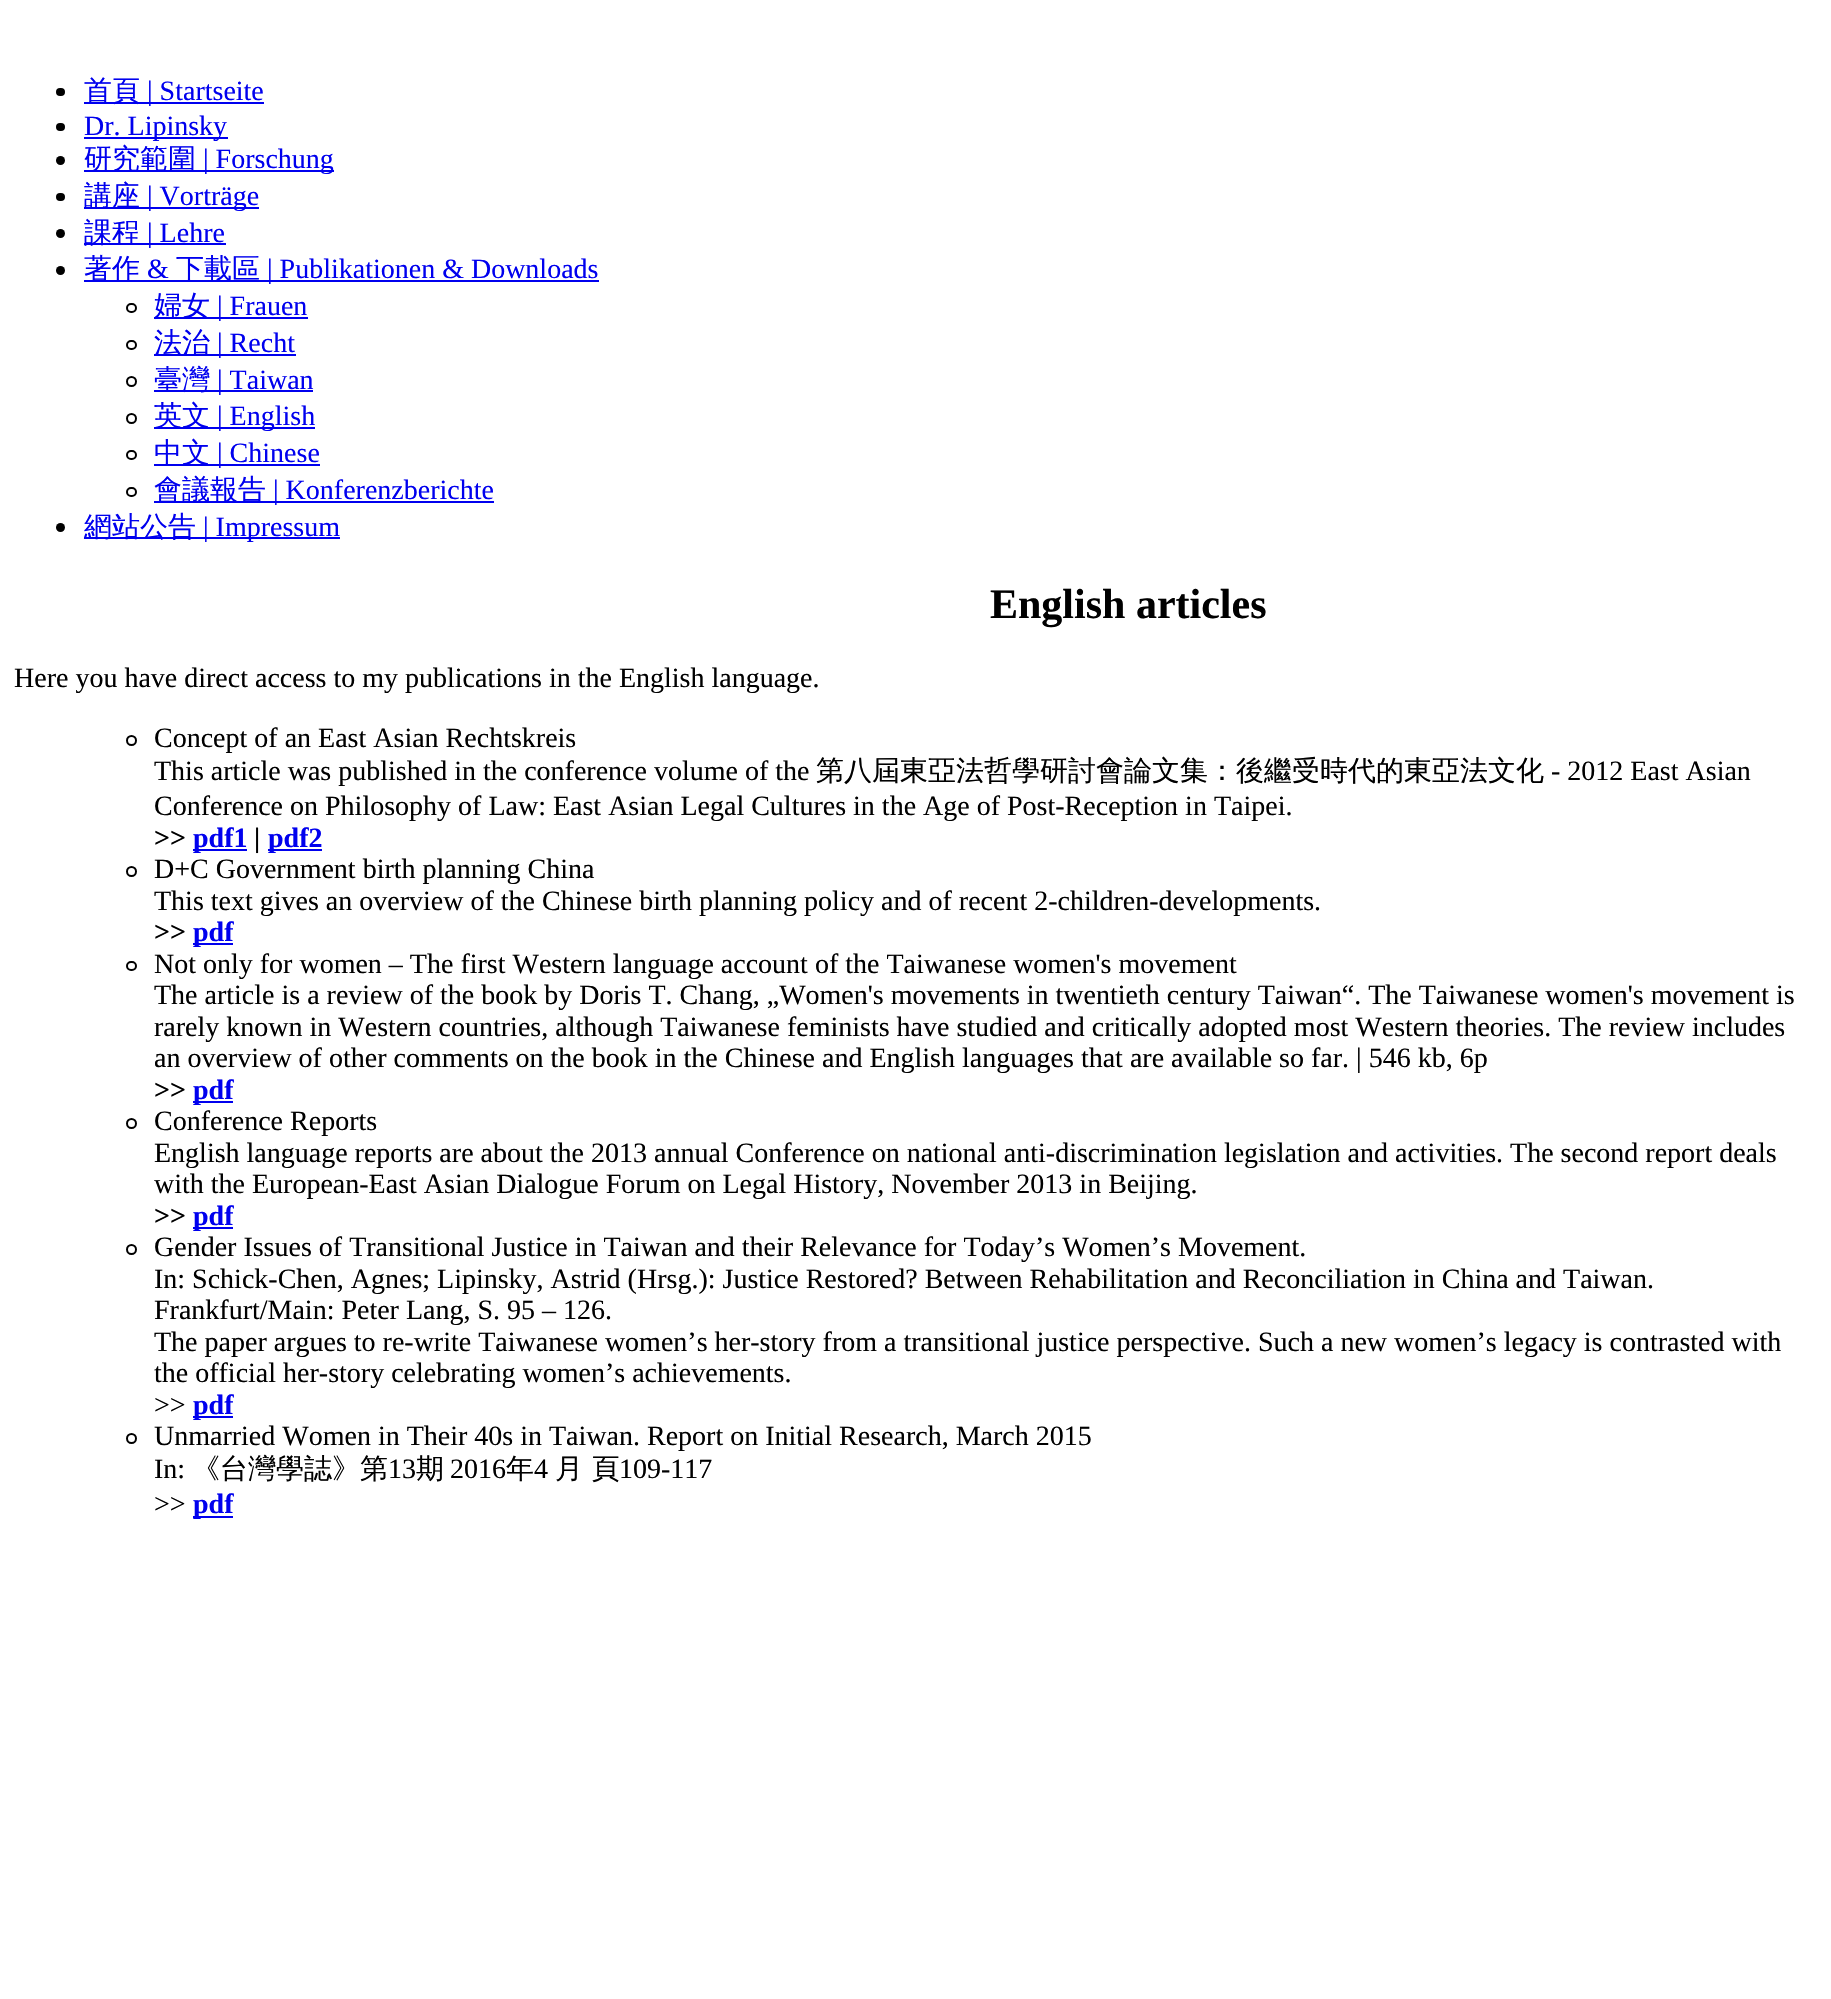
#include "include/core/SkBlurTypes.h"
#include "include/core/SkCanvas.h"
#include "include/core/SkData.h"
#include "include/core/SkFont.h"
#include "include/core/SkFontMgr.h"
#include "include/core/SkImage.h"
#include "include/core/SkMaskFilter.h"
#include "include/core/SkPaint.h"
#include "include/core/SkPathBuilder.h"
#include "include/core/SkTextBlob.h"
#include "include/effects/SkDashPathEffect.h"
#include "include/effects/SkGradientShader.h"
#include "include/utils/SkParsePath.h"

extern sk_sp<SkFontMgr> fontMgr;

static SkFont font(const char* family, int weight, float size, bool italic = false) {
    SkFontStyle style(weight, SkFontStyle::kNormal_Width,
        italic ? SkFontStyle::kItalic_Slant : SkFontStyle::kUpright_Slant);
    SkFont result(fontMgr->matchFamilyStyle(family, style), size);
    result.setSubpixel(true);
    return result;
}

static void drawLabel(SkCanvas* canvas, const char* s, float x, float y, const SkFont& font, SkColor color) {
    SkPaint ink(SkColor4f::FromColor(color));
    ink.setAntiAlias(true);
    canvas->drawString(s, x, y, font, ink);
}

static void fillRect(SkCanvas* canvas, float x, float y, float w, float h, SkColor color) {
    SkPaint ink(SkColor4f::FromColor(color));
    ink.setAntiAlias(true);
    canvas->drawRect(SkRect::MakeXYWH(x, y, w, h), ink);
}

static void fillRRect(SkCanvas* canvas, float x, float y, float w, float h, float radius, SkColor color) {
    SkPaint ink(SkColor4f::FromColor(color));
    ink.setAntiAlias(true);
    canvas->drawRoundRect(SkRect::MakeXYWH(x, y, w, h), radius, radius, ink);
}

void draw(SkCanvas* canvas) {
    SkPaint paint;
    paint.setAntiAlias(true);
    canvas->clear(0xFFFFFFFF);
    fillRRect(canvas, 56, 88, 9, 8, 4, 0xFF000000);
    fillRect(canvas, 84, 102, 180, 2, 0xFF0000EE);
    SkFont font1 = font("WenQuanYi Zen Hei", 500, 28);
    drawLabel(canvas, "首頁", 84, 100, font1, 0xFF0000EE);
    SkFont font2 = font("Liberation Serif", 400, 28);
    drawLabel(canvas, "| Startseite", 147, 100, font2, 0xFF0000EE);
    fillRRect(canvas, 56, 123, 9, 8, 4, 0xFF000000);
    fillRect(canvas, 84, 137, 144, 2, 0xFF0000EE);
    drawLabel(canvas, "Dr. Lipinsky", 84, 135, font2, 0xFF0000EE);
    paint.setColor(0xFF000000);
    canvas->drawCircle(60.5f, 160.5f, 4.5f, paint);
    fillRect(canvas, 84, 170, 250, 2, 0xFF0000EE);
    drawLabel(canvas, "研究範圍", 84, 168, font1, 0xFF0000EE);
    drawLabel(canvas, "| Forschung", 203, 168, font2, 0xFF0000EE);
    fillRRect(canvas, 56, 193, 9, 8, 4, 0xFF000000);
    fillRect(canvas, 84, 207, 175, 2, 0xFF0000EE);
    drawLabel(canvas, "講座", 84, 205, font1, 0xFF0000EE);
    drawLabel(canvas, "| Vorträge", 147, 205, font2, 0xFF0000EE);
    canvas->drawCircle(60.5f, 233.5f, 4.5f, paint);
    fillRect(canvas, 84, 243, 142, 2, 0xFF0000EE);
    drawLabel(canvas, "課程", 84, 242, font1, 0xFF0000EE);
    drawLabel(canvas, "| Lehre", 147, 242, font2, 0xFF0000EE);
    canvas->drawCircle(60.5f, 270.5f, 4.5f, paint);
    fillRect(canvas, 84, 280, 515, 2, 0xFF0000EE);
    drawLabel(canvas, "著作", 84, 278, font1, 0xFF0000EE);
    drawLabel(canvas, "&", 147, 278, font2, 0xFF0000EE);
    drawLabel(canvas, "下載區", 176, 278, font1, 0xFF0000EE);
    drawLabel(canvas, "| Publikationen & Downloads", 267, 278, font2, 0xFF0000EE);
    paint.setStroke(true);
    paint.setStrokeWidth(2);
    canvas->drawRoundRect(SkRect::MakeXYWH(127, 304, 9, 8), 4, 4, paint);
    fillRect(canvas, 154, 317, 154, 2, 0xFF0000EE);
    drawLabel(canvas, "婦女", 154, 315, font1, 0xFF0000EE);
    drawLabel(canvas, "| Frauen", 217, 315, font2, 0xFF0000EE);
    canvas->drawRoundRect(SkRect::MakeXYWH(127, 341, 9, 8), 4, 4, paint);
    fillRect(canvas, 154, 354, 142, 2, 0xFF0000EE);
    drawLabel(canvas, "法治", 154, 352, font1, 0xFF0000EE);
    drawLabel(canvas, "| Recht", 217, 352, font2, 0xFF0000EE);
    canvas->drawCircle(131.5f, 381.5f, 4.5f, paint);
    fillRect(canvas, 154, 390, 159, 2, 0xFF0000EE);
    drawLabel(canvas, "臺灣", 154, 389, font1, 0xFF0000EE);
    drawLabel(canvas, "| Taiwan", 217, 389, font2, 0xFF0000EE);
    canvas->drawCircle(131.5f, 418.5f, 4.5f, paint);
    fillRect(canvas, 154, 427, 161, 2, 0xFF0000EE);
    drawLabel(canvas, "英文", 154, 425, font1, 0xFF0000EE);
    drawLabel(canvas, "| English", 217, 425, font2, 0xFF0000EE);
    canvas->drawRoundRect(SkRect::MakeXYWH(127, 451, 9, 8), 4, 4, paint);
    fillRect(canvas, 154, 464, 166, 2, 0xFF0000EE);
    drawLabel(canvas, "中文", 154, 462, font1, 0xFF0000EE);
    drawLabel(canvas, "| Chinese", 217, 462, font2, 0xFF0000EE);
    canvas->drawRoundRect(SkRect::MakeXYWH(127, 488, 9, 8), 4, 4, paint);
    fillRect(canvas, 154, 501, 340, 2, 0xFF0000EE);
    drawLabel(canvas, "會議報告", 154, 499, font1, 0xFF0000EE);
    drawLabel(canvas, "| Konferenzberichte", 273, 499, font2, 0xFF0000EE);
    paint.setStroke(false);
    canvas->drawCircle(60.5f, 527.5f, 4.5f, paint);
    fillRect(canvas, 84, 537, 256, 2, 0xFF0000EE);
    drawLabel(canvas, "網站公告", 84, 536, font1, 0xFF0000EE);
    drawLabel(canvas, "| Impressum", 203, 536, font2, 0xFF0000EE);
    SkFont font3 = font("Liberation Serif", 700, 42);
    drawLabel(canvas, "English articles", 990, 618, font3, 0xFF000000);
    drawLabel(canvas, "Here you have direct access to my publications in the English language.", 14, 687, font2, 0xFF000000);
    paint.setStroke(true);
    canvas->drawCircle(131.5f, 740.5f, 4.5f, paint);
    drawLabel(canvas, "Concept of an East Asian Rechtskreis", 154, 747, font2, 0xFF000000);
    drawLabel(canvas, "This article was published in the conference volume of the", 154, 780, font2, 0xFF000000);
    drawLabel(canvas, "第八屆東亞法哲學研討會論文集：後繼受時代的東亞法文化", 816, 780, font1, 0xFF000000);
    drawLabel(canvas, "- 2012 East Asian", 1551, 780, font2, 0xFF000000);
    drawLabel(canvas, "Conference on Philosophy of Law: East Asian Legal Cultures in the Age of Post-Reception in Taipei.", 154, 815, font2, 0xFF000000);
    SkFont font4 = font("Liberation Serif", 700, 28);
    drawLabel(canvas, ">>", 154, 847, font4, 0xFF000000);
    fillRect(canvas, 193, 849, 54, 2, 0xFF0000EE);
    drawLabel(canvas, "pdf1", 193, 847, font4, 0xFF0000EE);
    drawLabel(canvas, "|", 254, 847, font4, 0xFF000000);
    fillRect(canvas, 268, 849, 54, 2, 0xFF0000EE);
    drawLabel(canvas, "pdf2", 268, 847, font4, 0xFF0000EE);
    canvas->drawCircle(131.5f, 871.5f, 4.5f, paint);
    drawLabel(canvas, "D+C Government birth planning China", 154, 878, font2, 0xFF000000);
    drawLabel(canvas, "This text gives an overview of the Chinese birth planning policy and of recent 2-children-developments.", 154, 910, font2, 0xFF000000);
    drawLabel(canvas, ">>", 154, 941, font4, 0xFF000000);
    fillRect(canvas, 193, 943, 40, 2, 0xFF0000EE);
    drawLabel(canvas, "pdf", 193, 941, font4, 0xFF0000EE);
    canvas->drawRoundRect(SkRect::MakeXYWH(127, 962, 9, 8), 4, 4, paint);
    drawLabel(canvas, "Not only for women – The first Western language account of the Taiwanese women's movement", 154, 973, font2, 0xFF000000);
    drawLabel(canvas, "The article is a review of the book by Doris T. Chang, „Women's movements in twentieth century Taiwan“. The Taiwanese women's movement is", 154, 1004, font2, 0xFF000000);
    drawLabel(canvas, "rarely known in Western countries, although Taiwanese feminists have studied and critically adopted most Western theories. The review includes", 154, 1036, font2, 0xFF000000);
    drawLabel(canvas, "an overview of other comments on the book in the Chinese and English languages that are available so far. | 546 kb, 6p", 154, 1067, font2, 0xFF000000);
    drawLabel(canvas, ">>", 154, 1099, font4, 0xFF000000);
    fillRect(canvas, 193, 1101, 40, 2, 0xFF0000EE);
    drawLabel(canvas, "pdf", 193, 1099, font4, 0xFF0000EE);
    canvas->drawCircle(131.5f, 1123.5f, 4.5f, paint);
    drawLabel(canvas, "Conference Reports", 154, 1130, font2, 0xFF000000);
    drawLabel(canvas, "English language reports are about the 2013 annual Conference on national anti-discrimination legislation and activities. The second report deals", 154, 1162, font2, 0xFF000000);
    drawLabel(canvas, "with the European-East Asian Dialogue Forum on Legal History, November 2013 in Beijing.", 154, 1193, font2, 0xFF000000);
    drawLabel(canvas, ">>", 154, 1225, font4, 0xFF000000);
    fillRect(canvas, 193, 1227, 40, 2, 0xFF0000EE);
    drawLabel(canvas, "pdf", 193, 1225, font4, 0xFF0000EE);
    canvas->drawCircle(131.5f, 1249.5f, 4.5f, paint);
    drawLabel(canvas, "Gender Issues of Transitional Justice in Taiwan and their Relevance for Today’s Women’s Movement.", 154, 1256, font2, 0xFF000000);
    drawLabel(canvas, "In: Schick-Chen, Agnes; Lipinsky, Astrid (Hrsg.): Justice Restored? Between Rehabilitation and Reconciliation in China and Taiwan.", 154, 1288, font2, 0xFF000000);
    drawLabel(canvas, "Frankfurt/Main: Peter Lang, S. 95 – 126.", 154, 1319, font2, 0xFF000000);
    drawLabel(canvas, "The paper argues to re-write Taiwanese women’s her-story from a transitional justice perspective. Such a new women’s legacy is contrasted with", 154, 1351, font2, 0xFF000000);
    drawLabel(canvas, "the official her-story celebrating women’s achievements.", 154, 1382, font2, 0xFF000000);
    drawLabel(canvas, ">>", 154, 1414, font2, 0xFF000000);
    fillRect(canvas, 193, 1416, 40, 2, 0xFF0000EE);
    drawLabel(canvas, "pdf", 193, 1414, font4, 0xFF0000EE);
    canvas->drawCircle(131.5f, 1438.5f, 4.5f, paint);
    drawLabel(canvas, "Unmarried Women in Their 40s in Taiwan. Report on Initial Research, March 2015", 154, 1445, font2, 0xFF000000);
    drawLabel(canvas, "In:", 154, 1478, font2, 0xFF000000);
    drawLabel(canvas, "《台灣學誌》第", 192, 1478, font1, 0xFF000000);
    drawLabel(canvas, "13", 388, 1478, font2, 0xFF000000);
    drawLabel(canvas, "期", 416, 1478, font1, 0xFF000000);
    drawLabel(canvas, "2016", 450, 1478, font2, 0xFF000000);
    drawLabel(canvas, "年", 506, 1478, font1, 0xFF000000);
    drawLabel(canvas, "4", 534, 1478, font2, 0xFF000000);
    drawLabel(canvas, "月 頁", 555, 1478, font1, 0xFF000000);
    drawLabel(canvas, "109-117", 619, 1478, font2, 0xFF000000);
    drawLabel(canvas, ">>", 154, 1513, font2, 0xFF000000);
    fillRect(canvas, 193, 1516, 40, 2, 0xFF0000EE);
    drawLabel(canvas, "pdf", 193, 1513, font4, 0xFF0000EE);
}
